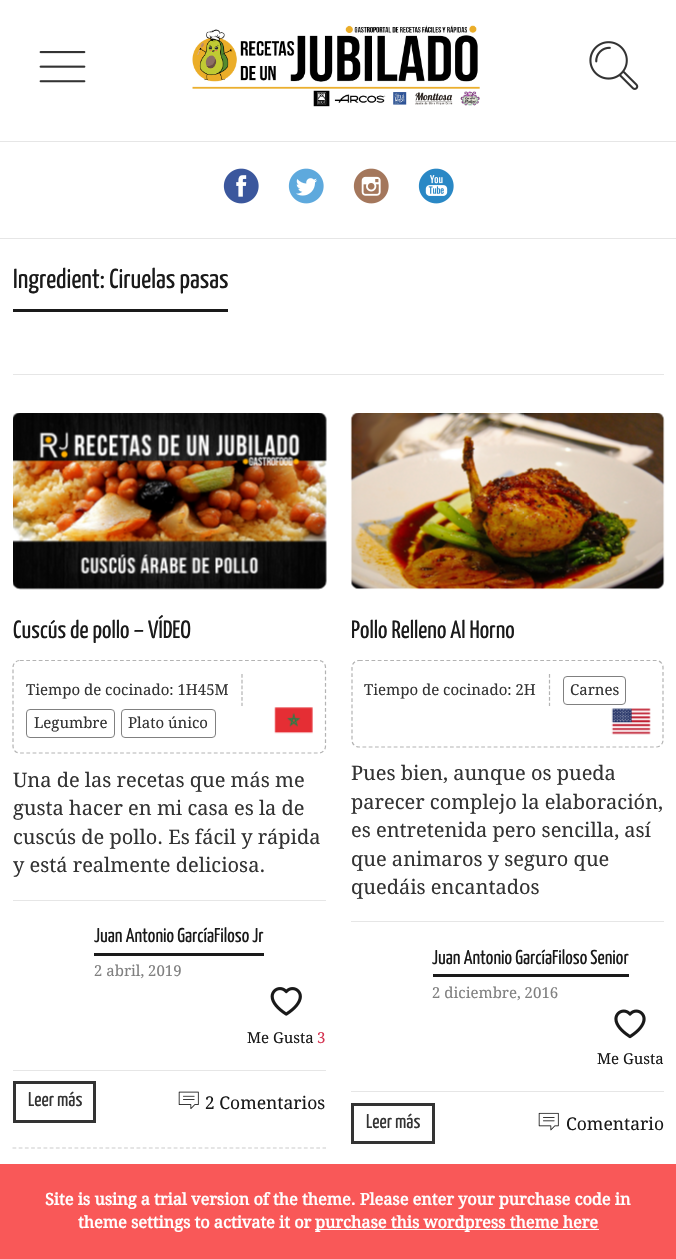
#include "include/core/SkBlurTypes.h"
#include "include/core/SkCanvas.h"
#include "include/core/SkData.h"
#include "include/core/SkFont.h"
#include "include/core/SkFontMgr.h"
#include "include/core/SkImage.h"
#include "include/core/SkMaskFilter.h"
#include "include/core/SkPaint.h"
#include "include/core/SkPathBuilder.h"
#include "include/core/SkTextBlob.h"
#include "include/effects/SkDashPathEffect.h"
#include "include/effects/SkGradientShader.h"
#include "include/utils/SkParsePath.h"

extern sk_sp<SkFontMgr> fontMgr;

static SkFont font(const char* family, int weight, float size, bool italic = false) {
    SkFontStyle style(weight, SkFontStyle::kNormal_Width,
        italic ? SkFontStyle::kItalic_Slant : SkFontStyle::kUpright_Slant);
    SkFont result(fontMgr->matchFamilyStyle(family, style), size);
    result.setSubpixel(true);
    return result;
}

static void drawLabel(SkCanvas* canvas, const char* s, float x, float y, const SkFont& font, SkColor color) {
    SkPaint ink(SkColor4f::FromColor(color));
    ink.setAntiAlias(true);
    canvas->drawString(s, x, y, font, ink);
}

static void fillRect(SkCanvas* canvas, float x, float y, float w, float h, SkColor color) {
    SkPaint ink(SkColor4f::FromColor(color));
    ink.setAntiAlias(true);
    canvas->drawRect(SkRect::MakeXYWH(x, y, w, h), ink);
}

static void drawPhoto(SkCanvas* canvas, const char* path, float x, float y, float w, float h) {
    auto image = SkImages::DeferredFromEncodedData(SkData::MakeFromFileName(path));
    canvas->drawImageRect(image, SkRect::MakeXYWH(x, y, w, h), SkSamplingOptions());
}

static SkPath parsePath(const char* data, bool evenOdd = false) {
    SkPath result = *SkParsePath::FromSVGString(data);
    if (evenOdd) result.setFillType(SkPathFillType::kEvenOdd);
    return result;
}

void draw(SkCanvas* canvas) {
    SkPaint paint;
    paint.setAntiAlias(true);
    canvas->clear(0xFFFFFFFF);
    drawPhoto(canvas, "assets/img1.png", 39, 51, 47, 32);
    drawPhoto(canvas, "assets/img2.png", 192, 25, 288, 82);
    drawPhoto(canvas, "assets/img3.png", 589, 41, 50, 49);
    fillRect(canvas, 0, 141, 676, 1, 0xFFE6E6E6);
    fillRect(canvas, 0, 238, 676, 1, 0xFFE6E6E6);
    drawPhoto(canvas, "assets/img4.png", 223, 168, 36, 36);
    drawPhoto(canvas, "assets/img5.png", 288, 168, 36, 36);
    drawPhoto(canvas, "assets/img6.png", 353, 168, 36, 36);
    drawPhoto(canvas, "assets/img7.png", 418, 168, 36, 36);
    fillRect(canvas, 13, 374, 651, 1, 0xFFE6E6E6);
    fillRect(canvas, 13, 309, 215, 3, 0xFF1A1A1A);
    SkFont font1 = font("Yanone Kaffeesatz", 200, 27.5f);
    drawLabel(canvas, "Ingredient: Ciruelas pasas", 13, 288, font1, 0xFF1A1A1A);
    paint.setStroke(true);
    paint.setStrokeWidth(1.2f);
    paint.setColor(0xFFCCCCCC);
    paint.setPathEffect(SkDashPathEffect::Make({{3.75f, 2.45f}}, 0));
    canvas->drawPath(parsePath("M12.5 1148H326"), paint);
    paint.setPathEffect(nullptr);
    drawPhoto(canvas, "assets/img8.png", 13, 413, 314, 177);
    SkFont font2 = font("Yanone Kaffeesatz", 200, 25);
    drawLabel(canvas, "Cuscús de pollo – VÍDEO", 13, 638, font2, 0xFF1A1A1A);
    paint.setColor(0xFFB3B3B3);
    paint.setPathEffect(SkDashPathEffect::Make({{3.75f, 2.5f}}, 0));
    canvas->drawPath(parsePath("M20 660.5H319C322.5 660.5 325.5 663.5 325.5 667.5V746C325.5 750 322.5 753 319 753H20C16 753 13 750 13 746V667.5C13 663.5 16 660.5 20 660.5Z"), paint);
    paint.setPathEffect(nullptr);
    paint.setPathEffect(SkDashPathEffect::Make({{3.75f, 2}}, 0));
    canvas->drawPath(parsePath("M242 674V706"), paint);
    paint.setPathEffect(nullptr);
    SkFont font3 = font("Droid Serif", 400, 15);
    drawLabel(canvas, "Tiempo de cocinado: 1H45M", 26, 695, font3, 0xFF333333);
    paint.setStrokeWidth(1);
    paint.setColor(0xFF808080);
    canvas->drawRoundRect(SkRect::MakeXYWH(26.5f, 709.5f, 88, 28), 3.5f, 3.5f, paint);
    drawLabel(canvas, "Legumbre", 34, 728, font3, 0xFF333333);
    canvas->drawRoundRect(SkRect::MakeXYWH(121.5f, 709.5f, 94, 28), 3.5f, 3.5f, paint);
    drawLabel(canvas, "Plato único", 128, 728, font3, 0xFF333333);
    drawPhoto(canvas, "assets/img9.png", 274, 707, 39, 27);
    SkFont font4 = font("Droid Serif", 400, 20);
    drawLabel(canvas, "Una de las recetas que más me", 13, 787, font4, 0xFF333333);
    drawLabel(canvas, "gusta hacer en mi casa es la de", 13, 815, font4, 0xFF333333);
    drawLabel(canvas, "cuscús de pollo. Es fácil y rápida", 13, 844, font4, 0xFF333333);
    drawLabel(canvas, "y está realmente deliciosa.", 13, 872, font4, 0xFF333333);
    fillRect(canvas, 13, 900, 313, 1, 0xFFE6E6E6);
    fillRect(canvas, 94, 953, 170, 3, 0xFF1A1A1A);
    SkFont font5 = font("Yanone Kaffeesatz", 200, 20);
    drawLabel(canvas, "Juan Antonio GarcíaFiloso Jr", 94, 942, font5, 0xFF1A1A1A);
    drawLabel(canvas, "2 abril, 2019", 94, 976, font3, 0xFF808080);
    drawPhoto(canvas, "assets/img10.png", 270, 987, 32, 29);
    drawLabel(canvas, "Me Gusta", 247, 1043, font3, 0xFF1A1A1A);
    drawLabel(canvas, "3", 317, 1043, font3, 0xFFD53452);
    fillRect(canvas, 13, 1070, 313, 1, 0xFFE6E6E6);
    paint.setStrokeWidth(3);
    paint.setColor(0xFF333333);
    canvas->drawRect(SkRect::MakeXYWH(14.5f, 1082.5f, 80, 39), paint);
    drawLabel(canvas, "Leer más", 28, 1106, font5, 0xFF333333);
    drawPhoto(canvas, "assets/img11.png", 178, 1091, 21, 18);
    SkFont font6 = font("Droid Serif", 400, 17.5f);
    drawLabel(canvas, "2 Comentarios", 205, 1109, font6, 0xFF1A1A1A);
    drawPhoto(canvas, "assets/img12.png", 350, 413, 315, 177);
    drawLabel(canvas, "Pollo Relleno Al Horno", 351, 638, font2, 0xFF1A1A1A);
    paint.setStrokeWidth(1.2f);
    paint.setColor(0xFFB3B3B3);
    paint.setPathEffect(SkDashPathEffect::Make({{3.75f, 2.5f}}, 0));
    canvas->drawPath(parsePath("M359 660.5H656C660 660.5 663 663.5 663 667.5V740C663 744 660 747 656 747H359C355 747 352 744 352 740V667.5C352 663.5 355 660.5 359 660.5Z"), paint);
    paint.setPathEffect(nullptr);
    paint.setPathEffect(SkDashPathEffect::Make({{3.75f, 2}}, 0));
    canvas->drawPath(parsePath("M549.5 674V706"), paint);
    paint.setPathEffect(nullptr);
    drawLabel(canvas, "Tiempo de cocinado: 2H", 364, 695, font3, 0xFF333333);
    paint.setStrokeWidth(1);
    paint.setColor(0xFF808080);
    canvas->drawRoundRect(SkRect::MakeXYWH(563.5f, 676.5f, 62, 28), 3.5f, 3.5f, paint);
    drawLabel(canvas, "Carnes", 570, 695, font3, 0xFF333333);
    drawPhoto(canvas, "assets/img13.png", 611, 708, 40, 27);
    drawLabel(canvas, "Pues bien, aunque os pueda", 351, 780, font4, 0xFF333333);
    drawLabel(canvas, "parecer complejo la elaboración,", 351, 809, font4, 0xFF333333);
    drawLabel(canvas, "es entretenida pero sencilla, así", 351, 837, font4, 0xFF333333);
    drawLabel(canvas, "que animaros y seguro que", 351, 866, font4, 0xFF333333);
    drawLabel(canvas, "quedáis encantados", 351, 894, font4, 0xFF333333);
    fillRect(canvas, 351, 921, 313, 1, 0xFFE6E6E6);
    fillRect(canvas, 433, 974, 196, 3, 0xFF1A1A1A);
    drawLabel(canvas, "Juan Antonio GarcíaFiloso Senior", 432, 964, font5, 0xFF1A1A1A);
    drawLabel(canvas, "2 diciembre, 2016", 432, 998, font3, 0xFF808080);
    drawPhoto(canvas, "assets/img14.png", 614, 1009, 32, 30);
    drawLabel(canvas, "Me Gusta", 597, 1064, font3, 0xFF1A1A1A);
    fillRect(canvas, 351, 1091, 313, 1, 0xFFE6E6E6);
    paint.setStrokeWidth(3);
    paint.setColor(0xFF333333);
    canvas->drawRect(SkRect::MakeXYWH(352.5f, 1104.5f, 81, 38), paint);
    drawLabel(canvas, "Leer más", 366, 1128, font5, 0xFF333333);
    drawPhoto(canvas, "assets/img15.png", 538, 1112, 21, 19);
    drawLabel(canvas, "Comentario", 566, 1130, font6, 0xFF1A1A1A);
    fillRect(canvas, 0, 1164, 676, 95, 0xFFF95858);
    SkFont font7 = font("Droid Serif", 700, 16.25f);
    drawLabel(canvas, "Site is using a trial version of the theme. Please enter your purchase code in", 45, 1205, font7, 0xFFFFFFFF);
    drawLabel(canvas, "theme settings to activate it or", 78, 1228, font7, 0xFFFFFFFF);
    fillRect(canvas, 315, 1229, 284, 1, 0xFFFFFFFF);
    drawLabel(canvas, "purchase this wordpress theme here", 315, 1228, font7, 0xFFFFFFFF);
}
